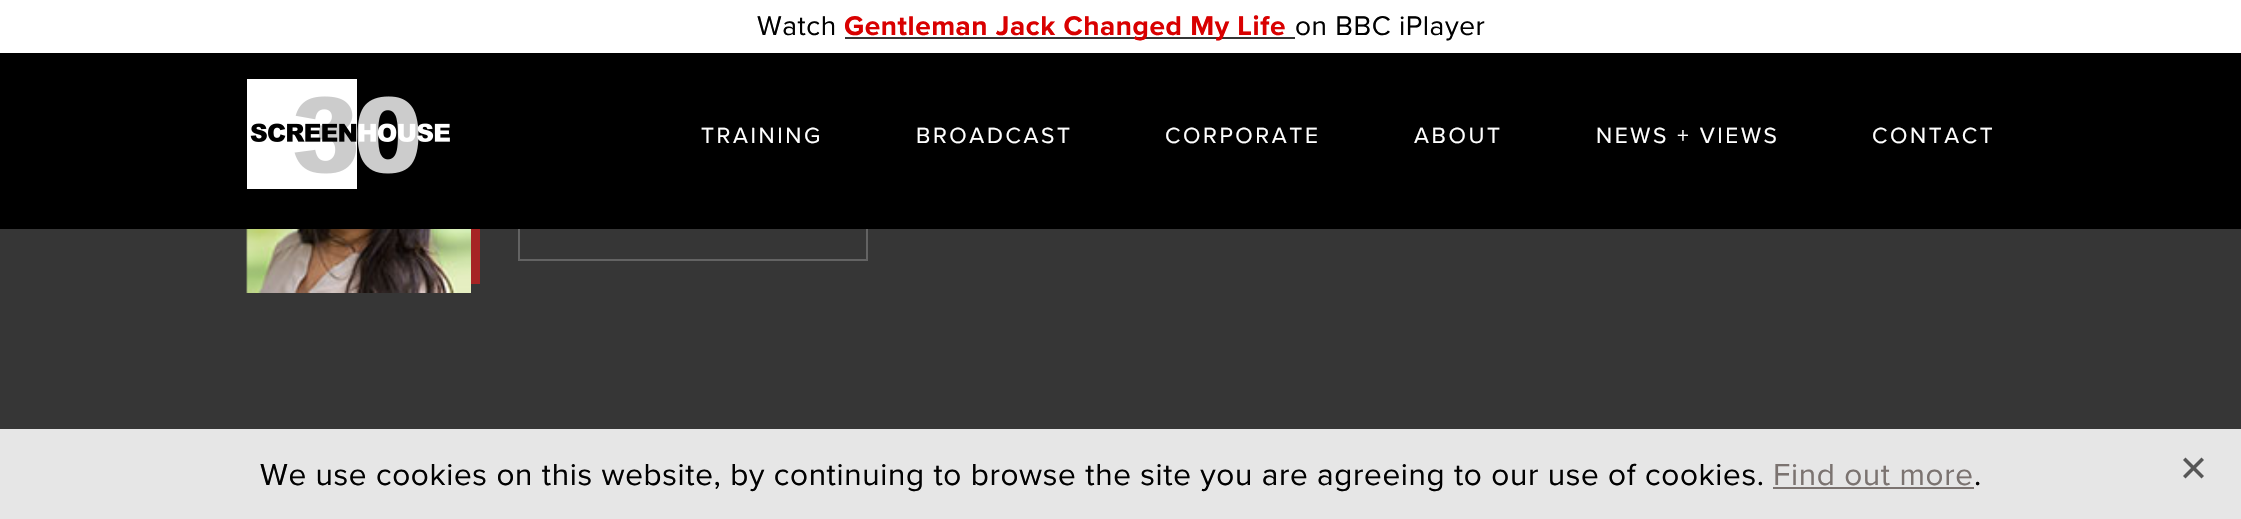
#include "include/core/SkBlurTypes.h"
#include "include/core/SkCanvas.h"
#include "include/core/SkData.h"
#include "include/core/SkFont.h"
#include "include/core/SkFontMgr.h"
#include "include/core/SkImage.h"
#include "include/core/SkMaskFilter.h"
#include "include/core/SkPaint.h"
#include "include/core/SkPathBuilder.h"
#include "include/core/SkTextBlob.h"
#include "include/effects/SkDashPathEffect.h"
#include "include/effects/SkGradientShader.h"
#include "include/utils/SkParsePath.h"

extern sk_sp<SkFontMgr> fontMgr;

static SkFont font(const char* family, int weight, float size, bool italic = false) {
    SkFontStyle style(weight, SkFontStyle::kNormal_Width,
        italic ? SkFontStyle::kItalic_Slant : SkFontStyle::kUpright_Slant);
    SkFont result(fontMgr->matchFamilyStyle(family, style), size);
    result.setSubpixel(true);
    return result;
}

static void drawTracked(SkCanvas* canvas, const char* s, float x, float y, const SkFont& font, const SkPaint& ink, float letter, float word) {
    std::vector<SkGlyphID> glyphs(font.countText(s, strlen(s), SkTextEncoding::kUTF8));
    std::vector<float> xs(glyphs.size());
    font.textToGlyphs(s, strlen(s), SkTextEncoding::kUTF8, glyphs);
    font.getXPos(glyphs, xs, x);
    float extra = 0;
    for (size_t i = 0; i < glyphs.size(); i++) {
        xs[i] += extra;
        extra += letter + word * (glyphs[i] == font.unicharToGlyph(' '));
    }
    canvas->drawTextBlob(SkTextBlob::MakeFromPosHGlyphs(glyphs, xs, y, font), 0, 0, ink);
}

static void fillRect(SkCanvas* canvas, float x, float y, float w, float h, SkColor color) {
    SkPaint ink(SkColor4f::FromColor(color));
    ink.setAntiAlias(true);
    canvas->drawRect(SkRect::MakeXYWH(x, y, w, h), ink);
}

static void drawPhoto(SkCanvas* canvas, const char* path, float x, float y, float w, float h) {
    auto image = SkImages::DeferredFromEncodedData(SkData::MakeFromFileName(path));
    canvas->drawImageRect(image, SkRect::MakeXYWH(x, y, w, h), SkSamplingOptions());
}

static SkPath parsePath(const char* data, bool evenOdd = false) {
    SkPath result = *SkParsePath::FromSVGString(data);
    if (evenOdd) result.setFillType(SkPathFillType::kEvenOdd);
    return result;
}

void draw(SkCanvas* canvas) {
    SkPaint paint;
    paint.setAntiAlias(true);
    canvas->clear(0xFF363636);
    paint.setColor(0xFFA62424);
    canvas->drawPath(parsePath("M256 70V79H471V284H480V70Z"), paint);
    drawPhoto(canvas, "assets/img1.png", 246, 229, 225, 64);
    paint.setStroke(true);
    paint.setStrokeWidth(2);
    paint.setColor(0xFF636363);
    canvas->drawRect(SkRect::MakeXYWH(519, 199, 348, 61), paint);
    fillRect(canvas, 0, 53, 2241, 176, 0xFF000000);
    fillRect(canvas, 0, 0, 2241, 53, 0xFFFFFFFF);
    SkFont font1 = font("Proxima Nova", 400, 28);
    paint.setStroke(false);
    paint.setColor(0xFF010101);
    drawTracked(canvas, "Watch", 757, 35, font1, paint, 0.55f, 0);
    fillRect(canvas, 845, 37, 450, 2, 0xFF353535);
    SkFont font2 = font("Proxima Nova", 700, 28);
    paint.setColor(0xFFD90000);
    drawTracked(canvas, "Gentleman Jack Changed My Life", 844, 35, font2, paint, 0.55f, 0);
    paint.setColor(0xFF010101);
    drawTracked(canvas, "on BBC iPlayer", 1295, 35, font1, paint, 0.55f, 0);
    drawPhoto(canvas, "assets/img2.png", 247, 79, 203, 110);
    SkFont font3 = font("Proxima Nova", 400, 22.75f);
    paint.setColor(0xFFFFFFFF);
    drawTracked(canvas, "TRAINING", 701, 143, font3, paint, 2.6f, 0);
    drawTracked(canvas, "BROADCAST", 916, 143, font3, paint, 2.6f, 0);
    drawTracked(canvas, "CORPORATE", 1165, 143, font3, paint, 2.6f, 0);
    drawTracked(canvas, "ABOUT", 1414, 143, font3, paint, 2.6f, 0);
    drawTracked(canvas, "NEWS + VIEWS", 1596, 143, font3, paint, 2.6f, 0);
    drawTracked(canvas, "CONTACT", 1872, 143, font3, paint, 2.6f, 0);
    fillRect(canvas, 0, 429, 2241, 90, 0xFFE6E6E6);
    SkFont font4 = font("Proxima Nova", 400, 31.5f);
    paint.setColor(0xFF010101);
    drawTracked(canvas, "We use cookies on this website, by continuing to browse the site you are agreeing to our use of cookies.", 260, 485, font4, paint, 0.63f, 0);
    paint.setColor(0xFF7B7370);
    drawTracked(canvas, "Find out more", 1773, 485, font4, paint, 0.63f, 0);
    fillRect(canvas, 1773, 487, 201, 2, 0xFF7B7370);
    paint.setColor(0xFF010101);
    drawTracked(canvas, ".", 1974, 485, font4, paint, 0.63f, 0);
    paint.setColor(0xFF575757);
    canvas->drawPath(parsePath("M2183 476L2201.5 457.5L2204 460L2185.5 478.5Z"), paint);
    canvas->drawPath(parsePath("M2185.5 457.5L2204 476L2201.5 478.5L2183 460Z"), paint);
}
